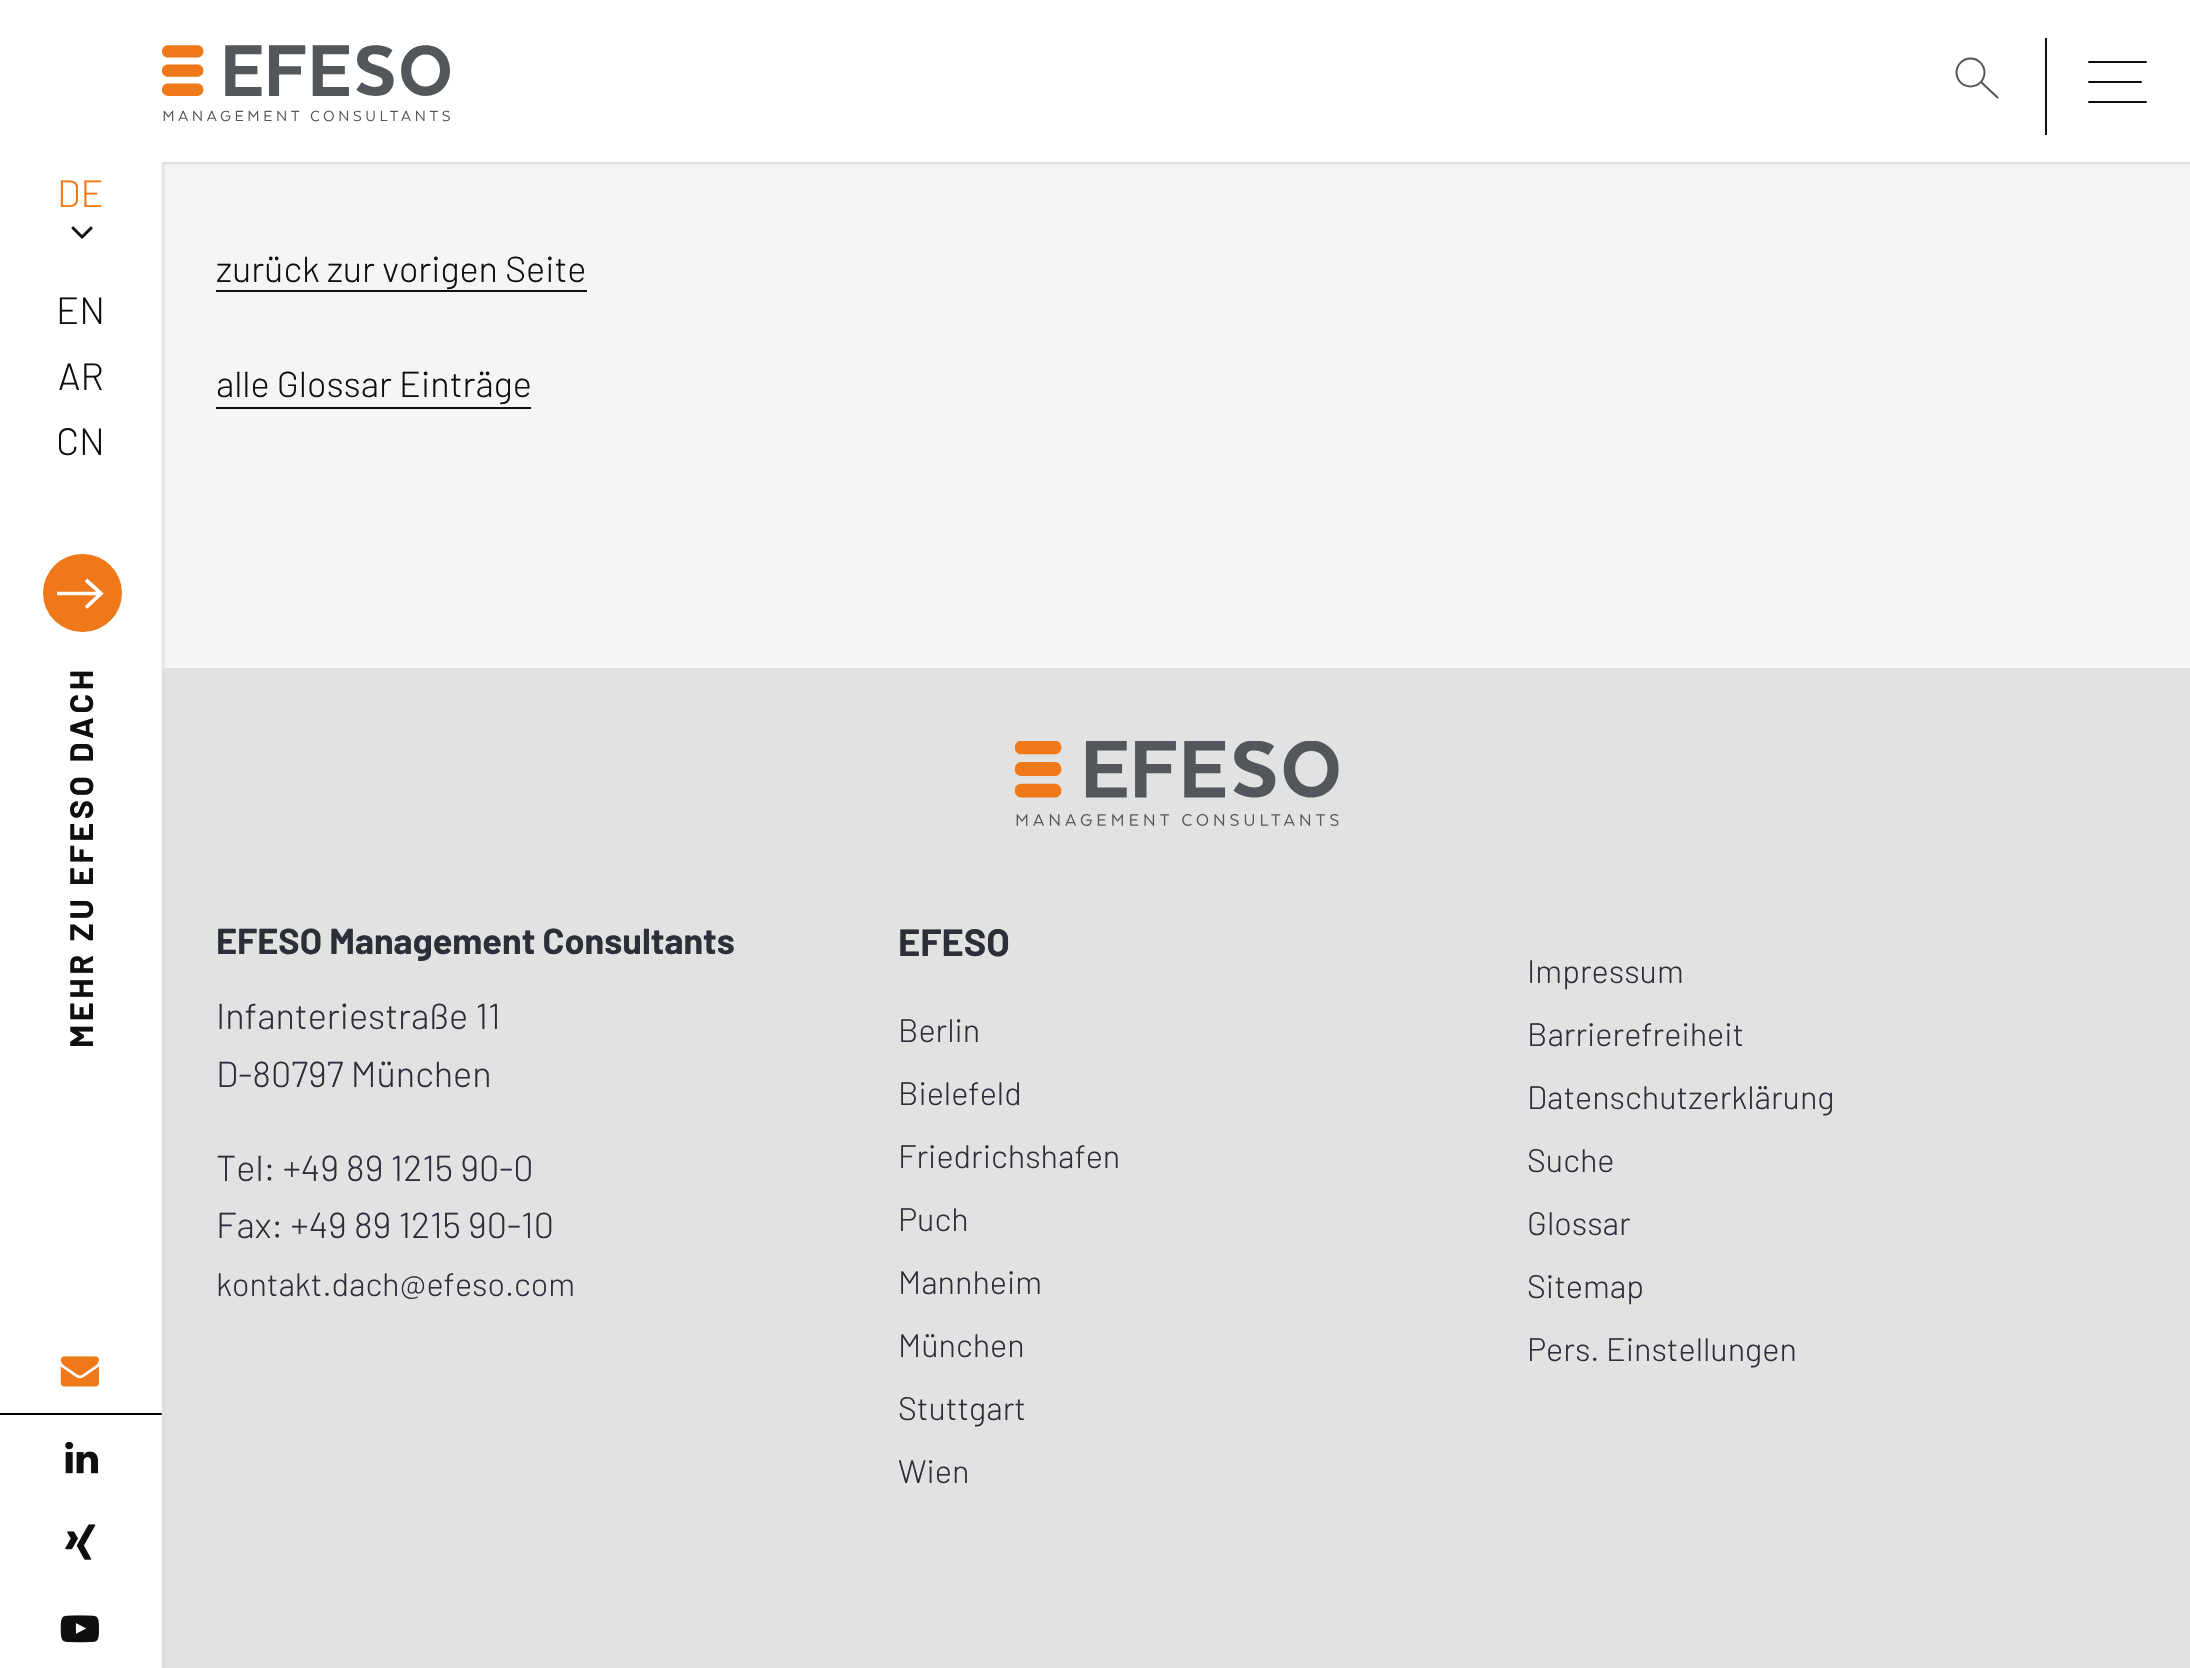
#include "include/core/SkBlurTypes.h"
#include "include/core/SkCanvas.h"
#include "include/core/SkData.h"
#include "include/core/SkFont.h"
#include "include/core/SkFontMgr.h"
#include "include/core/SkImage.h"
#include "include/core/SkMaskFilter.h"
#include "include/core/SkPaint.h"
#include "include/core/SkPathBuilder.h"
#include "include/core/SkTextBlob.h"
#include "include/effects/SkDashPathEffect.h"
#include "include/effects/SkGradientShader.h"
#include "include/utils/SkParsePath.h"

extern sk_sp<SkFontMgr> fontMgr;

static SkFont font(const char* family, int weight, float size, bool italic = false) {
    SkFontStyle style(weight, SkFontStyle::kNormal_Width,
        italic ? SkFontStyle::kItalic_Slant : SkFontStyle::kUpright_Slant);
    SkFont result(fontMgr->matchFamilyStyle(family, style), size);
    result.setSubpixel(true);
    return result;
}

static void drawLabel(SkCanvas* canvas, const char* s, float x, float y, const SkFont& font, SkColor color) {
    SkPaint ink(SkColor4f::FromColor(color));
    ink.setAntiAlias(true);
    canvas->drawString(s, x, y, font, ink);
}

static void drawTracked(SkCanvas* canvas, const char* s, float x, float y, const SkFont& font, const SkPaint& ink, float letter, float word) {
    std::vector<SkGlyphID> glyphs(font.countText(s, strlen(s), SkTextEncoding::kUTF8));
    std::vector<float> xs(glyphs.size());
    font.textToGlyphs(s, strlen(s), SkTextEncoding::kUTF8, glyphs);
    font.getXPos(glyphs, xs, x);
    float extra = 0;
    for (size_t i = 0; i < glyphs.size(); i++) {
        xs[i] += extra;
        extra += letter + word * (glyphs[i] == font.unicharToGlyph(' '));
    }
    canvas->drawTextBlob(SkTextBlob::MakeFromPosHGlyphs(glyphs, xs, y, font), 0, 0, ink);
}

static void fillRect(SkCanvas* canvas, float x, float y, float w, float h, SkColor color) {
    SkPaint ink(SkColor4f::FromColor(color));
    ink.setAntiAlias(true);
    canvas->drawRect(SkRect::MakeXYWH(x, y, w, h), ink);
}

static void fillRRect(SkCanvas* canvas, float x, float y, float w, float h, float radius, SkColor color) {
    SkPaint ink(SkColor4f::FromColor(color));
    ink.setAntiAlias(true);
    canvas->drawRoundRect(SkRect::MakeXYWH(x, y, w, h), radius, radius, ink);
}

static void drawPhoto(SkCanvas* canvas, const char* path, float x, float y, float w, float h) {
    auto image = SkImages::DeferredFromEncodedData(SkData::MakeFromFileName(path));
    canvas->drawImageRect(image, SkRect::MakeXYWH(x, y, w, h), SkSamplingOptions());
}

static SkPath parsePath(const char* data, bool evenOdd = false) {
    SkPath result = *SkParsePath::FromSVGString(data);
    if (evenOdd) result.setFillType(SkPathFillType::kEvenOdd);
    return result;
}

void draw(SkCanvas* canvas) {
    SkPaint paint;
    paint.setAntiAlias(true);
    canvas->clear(0xFFE2E2E2);
    fillRect(canvas, 162, 162, 2028, 506, 0xFFF5F5F5);
    paint.setColor(0xFFDDDDDD);
    paint.setMaskFilter(SkMaskFilter::MakeBlur(kNormal_SkBlurStyle, 1));
    canvas->drawRect(SkRect::MakeXYWH(2, 2, 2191, 162), paint);
    paint.setMaskFilter(nullptr);
    fillRect(canvas, 162, 0, 2028, 162, 0xFFFFFFFF);
    drawPhoto(canvas, "assets/img1.png", 162, 45, 288, 77);
    paint.setStroke(true);
    paint.setStrokeWidth(2);
    paint.setColor(0xFF565655);
    canvas->drawCircle(1970.5f, 72.5f, 14, paint);
    paint.setStrokeCap(SkPaint::kRound_Cap);
    canvas->drawPath(parsePath("M1981.5 82.5L1997.5 97.5"), paint);
    fillRect(canvas, 2045, 38, 2, 97, 0xFF0F0F0F);
    fillRRect(canvas, 2088, 61, 59, 2, 1, 0xFF0F0F0F);
    fillRRect(canvas, 2088, 81, 54, 2, 1, 0xFF0F0F0F);
    fillRRect(canvas, 2088, 101, 59, 2, 1, 0xFF0F0F0F);
    fillRect(canvas, 0, 0, 162, 1668, 0xFFFFFFFF);
    SkFont font1 = font("Barlow", 300, 38);
    drawLabel(canvas, "DE", 57, 207, font1, 0xFFEF7918);
    drawPhoto(canvas, "assets/img2.png", 71, 226, 22, 13);
    drawLabel(canvas, "EN", 56, 324, font1, 0xFF0F0F0F);
    drawLabel(canvas, "AR", 58, 390, font1, 0xFF0F0F0F);
    drawLabel(canvas, "CN", 56, 455, font1, 0xFF0F0F0F);
    fillRect(canvas, 0, 1413, 162, 2, 0xFF000000);
    paint.setStroke(false);
    paint.setColor(0xFFDDDDDD);
    paint.setMaskFilter(SkMaskFilter::MakeBlur(kNormal_SkBlurStyle, 1));
    canvas->drawRect(SkRect::MakeXYWH(162, 164, 2, 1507), paint);
    paint.setMaskFilter(nullptr);
    fillRRect(canvas, 43, 554, 79, 78, 39, 0xFFEF7918);
    paint.setStroke(true);
    paint.setStrokeWidth(3.7f);
    paint.setStrokeCap(SkPaint::kButt_Cap);
    paint.setColor(0xFFFFFFFF);
    canvas->drawPath(parsePath("M101 593.5H57M86 580L101 593.5L86 607.5"), paint);
    SkFont font2 = font("Barlow", 700, 32.4f);
    paint.setStroke(false);
    paint.setColor(0xFF0F0F0F);
    canvas->save();
    canvas->rotate(-90, 93, 886);
    drawTracked(canvas, "EFESO DACH", 93, 886, font2, paint, 3.6f, 0);
    canvas->restore();
    canvas->save();
    canvas->rotate(-90, 93, 1048);
    drawTracked(canvas, "MEHR ZU", 93, 1048, font2, paint, 3.6f, 0);
    canvas->restore();
    drawPhoto(canvas, "assets/img3.png", 60, 1356, 39, 31);
    drawPhoto(canvas, "assets/img4.png", 65, 1441, 34, 33);
    drawPhoto(canvas, "assets/img5.png", 65, 1524, 31, 36);
    drawPhoto(canvas, "assets/img6.png", 60, 1615, 39, 28);
    SkFont font3 = font("Barlow", 300, 36);
    drawLabel(canvas, "zurück zur vorigen Seite", 216, 282, font3, 0xFF0F0F0F);
    fillRect(canvas, 216, 290, 371, 2, 0xFF0F0F0F);
    drawLabel(canvas, "alle Glossar Einträge", 216, 397, font3, 0xFF0F0F0F);
    fillRect(canvas, 216, 407, 315, 2, 0xFF0F0F0F);
    drawPhoto(canvas, "assets/img7.png", 1015, 741, 324, 85);
    SkFont font4 = font("Barlow", 700, 36);
    drawLabel(canvas, "EFESO Management Consultants", 216, 954, font4, 0xFF2C2F38);
    drawLabel(canvas, "Infanteriestraße 11", 216, 1029, font3, 0xFF2C2F38);
    drawLabel(canvas, "D-80797 München", 216, 1087, font3, 0xFF2C2F38);
    drawLabel(canvas, "Tel: +49 89 1215 90-0", 216, 1181, font3, 0xFF2C2F38);
    drawLabel(canvas, "Fax: +49 89 1215 90-10", 216, 1238, font3, 0xFF2C2F38);
    SkFont font5 = font("Barlow", 300, 32.4f);
    drawLabel(canvas, "kontakt.dach@efeso.com", 216, 1296, font5, 0xFF2C2F38);
    SkFont font6 = font("Barlow", 700, 38);
    drawLabel(canvas, "EFESO", 898, 956, font6, 0xFF2C2F38);
    drawLabel(canvas, "Berlin", 898, 1042, font5, 0xFF2C2F38);
    drawLabel(canvas, "Bielefeld", 898, 1105, font5, 0xFF2C2F38);
    drawLabel(canvas, "Friedrichshafen", 898, 1168, font5, 0xFF2C2F38);
    drawLabel(canvas, "Puch", 898, 1231, font5, 0xFF2C2F38);
    drawLabel(canvas, "Mannheim", 898, 1294, font5, 0xFF2C2F38);
    drawLabel(canvas, "München", 898, 1357, font5, 0xFF2C2F38);
    drawLabel(canvas, "Stuttgart", 898, 1420, font5, 0xFF2C2F38);
    drawLabel(canvas, "Wien", 898, 1483, font5, 0xFF2C2F38);
    drawLabel(canvas, "Impressum", 1527, 983, font5, 0xFF2C2F38);
    drawLabel(canvas, "Barrierefreiheit", 1527, 1046, font5, 0xFF2C2F38);
    drawLabel(canvas, "Datenschutzerklärung", 1527, 1109, font5, 0xFF2C2F38);
    drawLabel(canvas, "Suche", 1527, 1172, font5, 0xFF2C2F38);
    drawLabel(canvas, "Glossar", 1527, 1235, font5, 0xFF2C2F38);
    drawLabel(canvas, "Sitemap", 1527, 1298, font5, 0xFF2C2F38);
    drawLabel(canvas, "Pers. Einstellungen", 1527, 1361, font5, 0xFF2C2F38);
}
